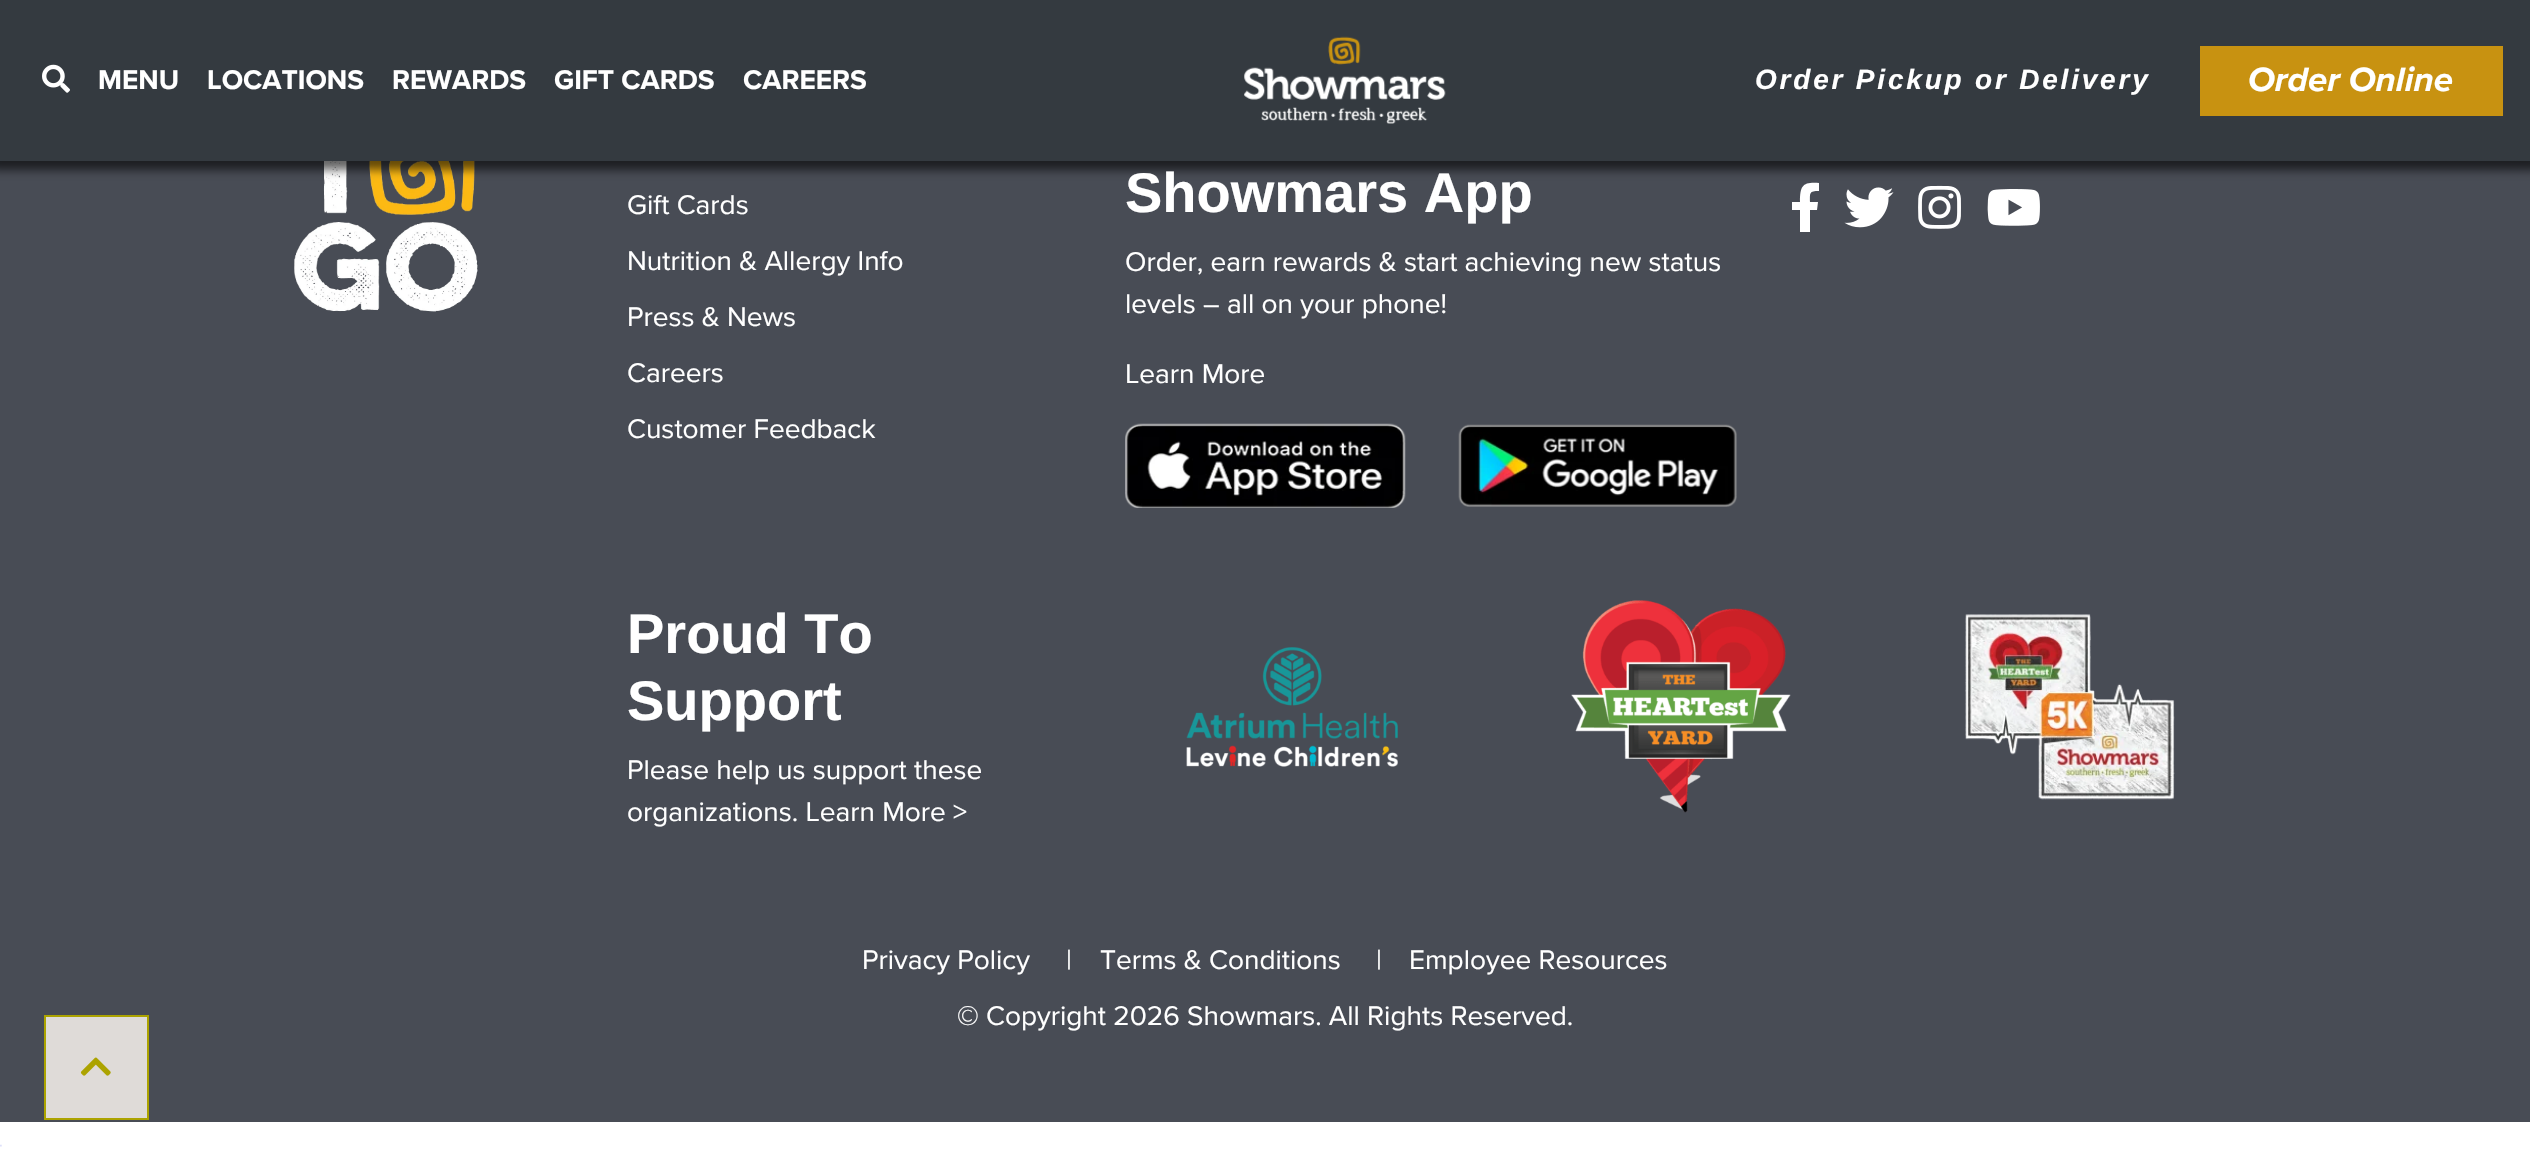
#include "include/core/SkBlurTypes.h"
#include "include/core/SkCanvas.h"
#include "include/core/SkData.h"
#include "include/core/SkFont.h"
#include "include/core/SkFontMgr.h"
#include "include/core/SkImage.h"
#include "include/core/SkMaskFilter.h"
#include "include/core/SkPaint.h"
#include "include/core/SkPathBuilder.h"
#include "include/core/SkTextBlob.h"
#include "include/effects/SkDashPathEffect.h"
#include "include/effects/SkGradientShader.h"
#include "include/utils/SkParsePath.h"

extern sk_sp<SkFontMgr> fontMgr;

static SkFont font(const char* family, int weight, float size, bool italic = false) {
    SkFontStyle style(weight, SkFontStyle::kNormal_Width,
        italic ? SkFontStyle::kItalic_Slant : SkFontStyle::kUpright_Slant);
    SkFont result(fontMgr->matchFamilyStyle(family, style), size);
    result.setSubpixel(true);
    return result;
}

static void drawLabel(SkCanvas* canvas, const char* s, float x, float y, const SkFont& font, SkColor color) {
    SkPaint ink(SkColor4f::FromColor(color));
    ink.setAntiAlias(true);
    canvas->drawString(s, x, y, font, ink);
}

static void drawTracked(SkCanvas* canvas, const char* s, float x, float y, const SkFont& font, const SkPaint& ink, float letter, float word) {
    std::vector<SkGlyphID> glyphs(font.countText(s, strlen(s), SkTextEncoding::kUTF8));
    std::vector<float> xs(glyphs.size());
    font.textToGlyphs(s, strlen(s), SkTextEncoding::kUTF8, glyphs);
    font.getXPos(glyphs, xs, x);
    float extra = 0;
    for (size_t i = 0; i < glyphs.size(); i++) {
        xs[i] += extra;
        extra += letter + word * (glyphs[i] == font.unicharToGlyph(' '));
    }
    canvas->drawTextBlob(SkTextBlob::MakeFromPosHGlyphs(glyphs, xs, y, font), 0, 0, ink);
}

static void fillRect(SkCanvas* canvas, float x, float y, float w, float h, SkColor color) {
    SkPaint ink(SkColor4f::FromColor(color));
    ink.setAntiAlias(true);
    canvas->drawRect(SkRect::MakeXYWH(x, y, w, h), ink);
}

static void drawPhoto(SkCanvas* canvas, const char* path, float x, float y, float w, float h) {
    auto image = SkImages::DeferredFromEncodedData(SkData::MakeFromFileName(path));
    canvas->drawImageRect(image, SkRect::MakeXYWH(x, y, w, h), SkSamplingOptions());
}

static SkPath parsePath(const char* data, bool evenOdd = false) {
    SkPath result = *SkParsePath::FromSVGString(data);
    if (evenOdd) result.setFillType(SkPathFillType::kEvenOdd);
    return result;
}

void draw(SkCanvas* canvas) {
    SkPaint paint;
    paint.setAntiAlias(true);
    canvas->clear(0xFFFFFFFF);
    fillRect(canvas, 0, 161, 2530, 961, 0xFF484C55);
    drawPhoto(canvas, "assets/img3.png", 294, 161, 184, 151);
    paint.setColor(0xFFFFFFFF);
    canvas->drawPath(parsePath("M1817 210H1810V232H1800V210H1792V202H1800C1800 185 1803 182 1819 183V191C1809 191 1810 193 1810 202H1818Z"), paint);
    paint.setColor(0x99000000);
    paint.setMaskFilter(SkMaskFilter::MakeBlur(kNormal_SkBlurStyle, 4.5f));
    canvas->drawRect(SkRect::MakeXYWH(-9, -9, 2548, 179), paint);
    paint.setMaskFilter(nullptr);
    fillRect(canvas, 0, 0, 2530, 161, 0xFF343A40);
    drawPhoto(canvas, "assets/img1.png", 42, 64, 28, 29);
    SkFont font1 = font("Proxima Nova", 700, 28);
    drawLabel(canvas, "MENU", 98, 89, font1, 0xFFFFFFFF);
    drawLabel(canvas, "LOCATIONS", 207, 89, font1, 0xFFFFFFFF);
    drawLabel(canvas, "REWARDS", 392, 89, font1, 0xFFFFFFFF);
    drawLabel(canvas, "GIFT CARDS", 554, 89, font1, 0xFFFFFFFF);
    drawLabel(canvas, "CAREERS", 743, 89, font1, 0xFFFFFFFF);
    drawPhoto(canvas, "assets/img2.png", 1244, 36, 202, 88);
    SkFont font2 = font("Liberation Sans", 700, 28, true);
    paint.setColor(0xFFFFFFFF);
    drawTracked(canvas, "Order Pickup or Delivery", 1755, 89, font2, paint, 2.8f, 0);
    fillRect(canvas, 2200, 46, 303, 70, 0xFFC89211);
    SkFont font3 = font("Proxima Nova", 700, 35, true);
    drawLabel(canvas, "Order Online", 2248, 91, font3, 0xFFFFFFFF);
    SkFont font4 = font("Proxima Nova", 400, 28);
    drawLabel(canvas, "Gift Cards", 627, 214, font4, 0xFFFFFFFF);
    drawLabel(canvas, "Nutrition & Allergy Info", 627, 270, font4, 0xFFFFFFFF);
    drawLabel(canvas, "Press & News", 627, 326, font4, 0xFFFFFFFF);
    drawLabel(canvas, "Careers", 627, 382, font4, 0xFFFFFFFF);
    drawLabel(canvas, "Customer Feedback", 627, 438, font4, 0xFFFFFFFF);
    SkFont font5 = font("Liberation Sans", 700, 56);
    drawLabel(canvas, "Showmars App", 1125, 212, font5, 0xFFFFFFFF);
    drawLabel(canvas, "Order, earn rewards & start achieving new status", 1125, 271, font4, 0xFFFFFFFF);
    drawLabel(canvas, "levels – all on your phone!", 1125, 313, font4, 0xFFFFFFFF);
    drawLabel(canvas, "Learn More", 1125, 383, font4, 0xFFFFFFFF);
    drawPhoto(canvas, "assets/img4.png", 1125, 423, 281, 85);
    drawPhoto(canvas, "assets/img5.png", 1458, 424, 279, 83);
    drawPhoto(canvas, "assets/img6.png", 1844, 187, 50, 41);
    drawPhoto(canvas, "assets/img7.png", 1918, 185, 43, 44);
    drawPhoto(canvas, "assets/img8.png", 1987, 189, 53, 37);
    drawLabel(canvas, "Proud To", 627, 653, font5, 0xFFFFFFFF);
    drawLabel(canvas, "Support", 627, 720, font5, 0xFFFFFFFF);
    drawLabel(canvas, "Please help us support these", 627, 779, font4, 0xFFFFFFFF);
    drawLabel(canvas, "organizations. Learn More >", 627, 821, font4, 0xFFFFFFFF);
    drawPhoto(canvas, "assets/img9.png", 1186, 647, 212, 120);
    drawPhoto(canvas, "assets/img10.png", 1571, 600, 220, 213);
    drawPhoto(canvas, "assets/img11.png", 1965, 614, 210, 186);
    drawLabel(canvas, "Privacy Policy", 862, 969, font4, 0xFFFFFFFF);
    drawLabel(canvas, "|", 1066, 969, font4, 0xFFFFFFFF);
    drawLabel(canvas, "Terms & Conditions", 1100, 969, font4, 0xFFFFFFFF);
    drawLabel(canvas, "|", 1376, 969, font4, 0xFFFFFFFF);
    drawLabel(canvas, "Employee Resources", 1409, 969, font4, 0xFFFFFFFF);
    drawLabel(canvas, "© Copyright 2026 Showmars. All Rights Reserved.", 957, 1025, font4, 0xFFFFFFFF);
    paint.setColor(0xFFDFDBD8);
    canvas->drawRect(SkRect::MakeXYWH(45, 1016, 103, 103), paint);
    paint.setStroke(true);
    paint.setStrokeWidth(2);
    paint.setColor(0xFFACA300);
    canvas->drawRect(SkRect::MakeXYWH(45, 1016, 103, 103), paint);
    drawPhoto(canvas, "assets/img12.png", 80, 1057, 31, 19);
    drawPhoto(canvas, "assets/img13.png", 0, 1144, 2, 3);
}
